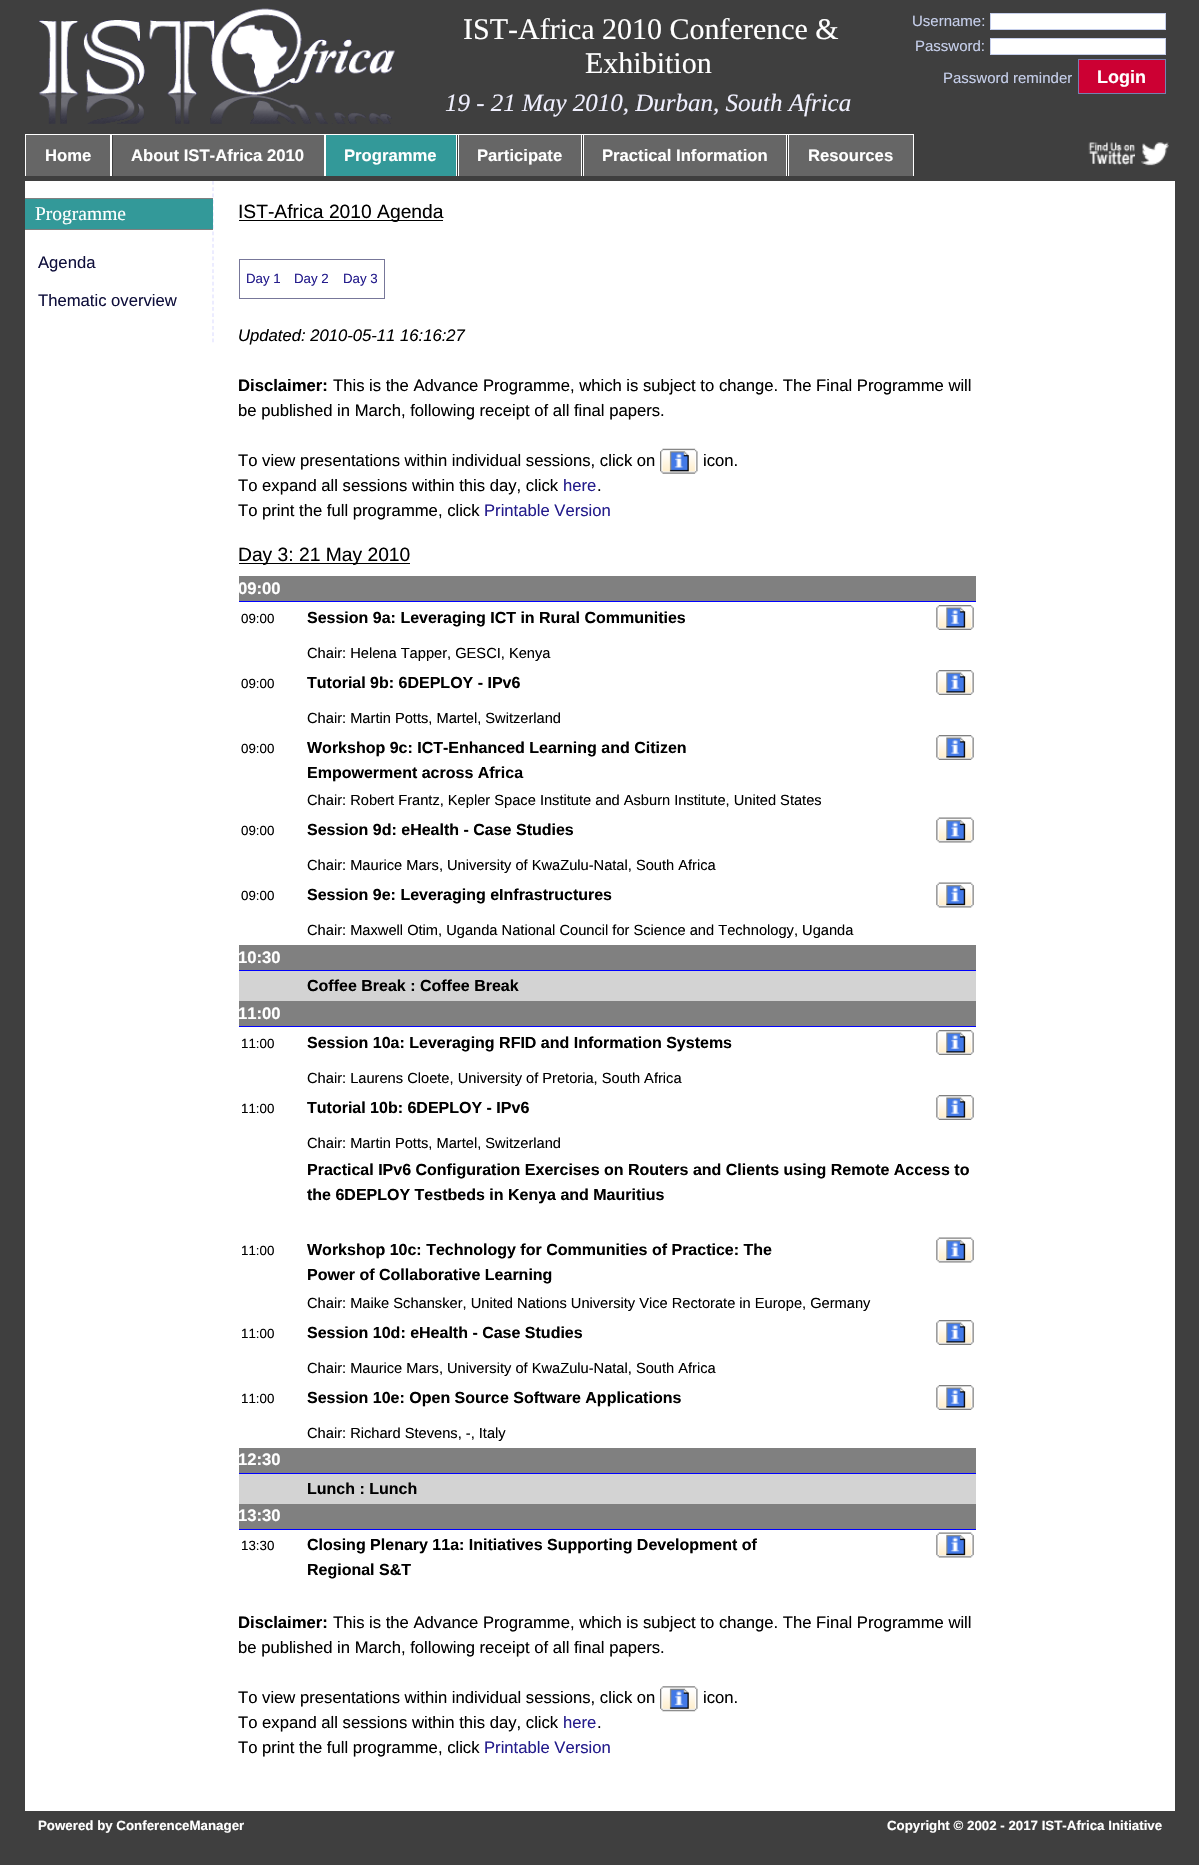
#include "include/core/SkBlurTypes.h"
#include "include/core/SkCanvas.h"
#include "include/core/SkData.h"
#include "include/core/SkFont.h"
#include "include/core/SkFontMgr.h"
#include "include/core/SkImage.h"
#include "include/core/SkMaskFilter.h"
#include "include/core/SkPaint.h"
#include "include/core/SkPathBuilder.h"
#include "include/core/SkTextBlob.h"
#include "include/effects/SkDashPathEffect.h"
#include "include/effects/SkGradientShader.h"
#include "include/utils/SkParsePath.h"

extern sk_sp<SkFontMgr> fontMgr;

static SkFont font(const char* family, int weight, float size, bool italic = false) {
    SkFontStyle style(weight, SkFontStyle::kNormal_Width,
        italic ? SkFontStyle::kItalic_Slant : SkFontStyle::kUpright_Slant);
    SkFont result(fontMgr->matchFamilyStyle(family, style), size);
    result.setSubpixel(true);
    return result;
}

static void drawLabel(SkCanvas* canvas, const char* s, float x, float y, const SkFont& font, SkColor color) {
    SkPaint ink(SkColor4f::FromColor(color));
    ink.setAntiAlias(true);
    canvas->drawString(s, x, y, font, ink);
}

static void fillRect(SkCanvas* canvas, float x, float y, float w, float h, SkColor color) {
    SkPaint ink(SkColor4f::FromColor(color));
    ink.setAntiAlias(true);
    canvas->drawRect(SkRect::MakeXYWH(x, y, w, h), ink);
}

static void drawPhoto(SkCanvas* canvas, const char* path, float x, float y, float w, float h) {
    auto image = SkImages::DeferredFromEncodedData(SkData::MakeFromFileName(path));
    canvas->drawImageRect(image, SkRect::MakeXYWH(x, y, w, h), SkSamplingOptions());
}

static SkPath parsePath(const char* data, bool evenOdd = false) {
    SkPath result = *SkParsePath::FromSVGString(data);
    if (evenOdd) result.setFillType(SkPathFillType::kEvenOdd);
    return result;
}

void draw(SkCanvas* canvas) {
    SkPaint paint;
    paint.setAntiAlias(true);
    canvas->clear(0xFF3F3F3F);
    drawPhoto(canvas, "assets/img1.png", 39, 8, 356, 116);
    SkFont font1 = font("Liberation Serif", 400, 30);
    drawLabel(canvas, "IST-Africa 2010 Conference &", 463, 39, font1, 0xFFFFFFFF);
    drawLabel(canvas, "Exhibition", 585, 73, font1, 0xFFFFFFFF);
    SkFont font2 = font("Liberation Serif", 400, 25, true);
    drawLabel(canvas, "19 - 21 May 2010, Durban, South Africa", 445, 111, font2, 0xFFF0F0FF);
    SkFont font3 = font("Liberation Sans", 400, 15);
    drawLabel(canvas, "Username:", 912, 26, font3, 0xFFC6CFEB);
    paint.setColor(0xFFFFFFFF);
    canvas->drawRect(SkRect::MakeXYWH(990.5f, 13.5f, 175, 16), paint);
    paint.setStroke(true);
    paint.setStrokeWidth(1);
    paint.setColor(0xFFC6CFEB);
    canvas->drawRect(SkRect::MakeXYWH(990.5f, 13.5f, 175, 16), paint);
    drawLabel(canvas, "Password:", 915, 51, font3, 0xFFC6CFEB);
    paint.setStroke(false);
    paint.setColor(0xFFFFFFFF);
    canvas->drawRect(SkRect::MakeXYWH(990.5f, 38.5f, 175, 16), paint);
    paint.setStroke(true);
    paint.setColor(0xFFC6CFEB);
    canvas->drawRect(SkRect::MakeXYWH(990.5f, 38.5f, 175, 16), paint);
    drawLabel(canvas, "Password reminder", 943, 83, font3, 0xFFC6CFEB);
    paint.setStroke(false);
    paint.setColor(0xFFCC0033);
    canvas->drawRect(SkRect::MakeXYWH(1078.5f, 59.5f, 87, 34), paint);
    paint.setStroke(true);
    paint.setColor(0xFF7680B0);
    canvas->drawRect(SkRect::MakeXYWH(1078.5f, 59.5f, 87, 34), paint);
    SkFont font4 = font("Liberation Sans", 700, 18);
    drawLabel(canvas, "Login", 1097, 83, font4, 0xFFFFFFFF);
    fillRect(canvas, 26, 135, 84, 41, 0xFF666666);
    fillRect(canvas, 25, 134, 889, 1, 0xFFFFFFFF);
    fillRect(canvas, 110, 134, 2, 42, 0xFFFFFFFF);
    fillRect(canvas, 25, 134, 1, 42, 0xFFFFFFFF);
    SkFont font5 = font("Liberation Sans", 700, 16.65f);
    drawLabel(canvas, "Home", 45, 161, font5, 0xFFFFFFFF);
    fillRect(canvas, 113, 135, 211, 41, 0xFF666666);
    fillRect(canvas, 324, 134, 2, 42, 0xFFFFFFFF);
    drawLabel(canvas, "About IST-Africa 2010", 131, 161, font5, 0xFFFFFFFF);
    fillRect(canvas, 326, 135, 130, 41, 0xFF339999);
    fillRect(canvas, 456, 134, 1, 42, 0xFFFFFFFF);
    drawLabel(canvas, "Programme", 344, 161, font5, 0xFFFFFFFF);
    fillRect(canvas, 459, 135, 122, 41, 0xFF666666);
    fillRect(canvas, 581, 134, 1, 42, 0xFFFFFFFF);
    fillRect(canvas, 458, 134, 1, 42, 0xFFFFFFFF);
    drawLabel(canvas, "Participate", 477, 161, font5, 0xFFFFFFFF);
    fillRect(canvas, 584, 135, 202, 41, 0xFF666666);
    fillRect(canvas, 786, 134, 1, 42, 0xFFFFFFFF);
    fillRect(canvas, 583, 134, 1, 42, 0xFFFFFFFF);
    drawLabel(canvas, "Practical Information", 602, 161, font5, 0xFFFFFFFF);
    fillRect(canvas, 789, 135, 124, 41, 0xFF666666);
    fillRect(canvas, 913, 134, 1, 42, 0xFFFFFFFF);
    fillRect(canvas, 788, 134, 1, 42, 0xFFFFFFFF);
    drawLabel(canvas, "Resources", 808, 161, font5, 0xFFFFFFFF);
    drawPhoto(canvas, "assets/img2.png", 1088, 142, 47, 24);
    drawPhoto(canvas, "assets/img3.png", 1141, 142, 28, 24);
    fillRect(canvas, 25, 181, 1150, 1630, 0xFFFFFFFF);
    paint.setStrokeWidth(1.2f);
    paint.setColor(0xFFE0E0FF);
    paint.setPathEffect(SkDashPathEffect::Make({{3.75f, 2.55f}}, 0));
    canvas->drawPath(parsePath("M213 181V342.5"), paint);
    paint.setPathEffect(nullptr);
    fillRect(canvas, 25, 199, 188, 30, 0xFF339999);
    fillRect(canvas, 25, 198, 188, 1, 0xFF808080);
    fillRect(canvas, 25, 229, 188, 1, 0xFF808080);
    SkFont font6 = font("Liberation Serif", 400, 19.5f);
    drawLabel(canvas, "Programme", 35, 220, font6, 0xFFFFFFFF);
    SkFont font7 = font("Liberation Sans", 400, 16.65f);
    drawLabel(canvas, "Agenda", 38, 268, font7, 0xFF10103C);
    drawLabel(canvas, "Thematic overview", 38, 306, font7, 0xFF10103C);
    fillRect(canvas, 239, 220, 204, 1, 0xFF000000);
    SkFont font8 = font("Liberation Sans", 400, 19.25f);
    drawLabel(canvas, "IST-Africa 2010 Agenda", 238, 218, font8, 0xFF000000);
    fillRect(canvas, 239, 259, 146, 40, 0xFF777799);
    fillRect(canvas, 240, 260, 144, 38, 0xFFFFFFFF);
    SkFont font9 = font("Liberation Sans", 400, 13.3f);
    drawLabel(canvas, "Day 1", 246, 283, font9, 0xFF241C8C);
    drawLabel(canvas, "Day 2", 294, 283, font9, 0xFF241C8C);
    drawLabel(canvas, "Day 3", 343, 283, font9, 0xFF241C8C);
    SkFont font10 = font("Liberation Sans", 400, 16.65f, true);
    drawLabel(canvas, "Updated: 2010-05-11 16:16:27", 238, 341, font10, 0xFF000000);
    drawLabel(canvas, "Disclaimer:", 238, 391, font5, 0xFF000000);
    drawLabel(canvas, "This is the Advance Programme, which is subject to change. The Final Programme will", 333, 391, font7, 0xFF000000);
    drawLabel(canvas, "be published in March, following receipt of all final papers.", 238, 416, font7, 0xFF000000);
    drawLabel(canvas, "To view presentations within individual sessions, click on", 238, 466, font7, 0xFF000000);
    drawPhoto(canvas, "assets/img4.png", 660, 448, 38, 26);
    drawLabel(canvas, "icon.", 703, 466, font7, 0xFF000000);
    drawLabel(canvas, "To expand all sessions within this day, click", 238, 491, font7, 0xFF000000);
    drawLabel(canvas, "here", 563, 491, font7, 0xFF241C8C);
    drawLabel(canvas, ".", 597, 491, font7, 0xFF000000);
    drawLabel(canvas, "To print the full programme, click", 238, 516, font7, 0xFF000000);
    drawLabel(canvas, "Printable Version", 484, 516, font7, 0xFF241C8C);
    fillRect(canvas, 239, 563, 171, 1, 0xFF000000);
    drawLabel(canvas, "Day 3: 21 May 2010", 238, 561, font8, 0xFF000000);
    fillRect(canvas, 239, 576, 737, 25, 0xFF808080);
    fillRect(canvas, 239, 601, 737, 1, 0xFF0000FF);
    drawLabel(canvas, "09:00", 238, 594, font5, 0xFFFFFFFF);
    drawLabel(canvas, "09:00", 241, 623, font9, 0xFF000000);
    SkFont font11 = font("Liberation Sans", 700, 16);
    drawLabel(canvas, "Session 9a: Leveraging ICT in Rural Communities", 307, 623, font11, 0xFF000000);
    drawPhoto(canvas, "assets/img5.png", 936, 605, 38, 25);
    SkFont font12 = font("Liberation Sans", 400, 14.65f);
    drawLabel(canvas, "Chair: Helena Tapper, GESCI, Kenya", 307, 658, font12, 0xFF000000);
    drawLabel(canvas, "09:00", 241, 688, font9, 0xFF000000);
    drawLabel(canvas, "Tutorial 9b: 6DEPLOY - IPv6", 307, 688, font11, 0xFF000000);
    drawPhoto(canvas, "assets/img5.png", 936, 670, 38, 25);
    drawLabel(canvas, "Chair: Martin Potts, Martel, Switzerland", 307, 723, font12, 0xFF000000);
    drawLabel(canvas, "09:00", 241, 753, font9, 0xFF000000);
    drawLabel(canvas, "Workshop 9c: ICT-Enhanced Learning and Citizen", 307, 753, font11, 0xFF000000);
    drawLabel(canvas, "Empowerment across Africa", 307, 778, font11, 0xFF000000);
    drawPhoto(canvas, "assets/img5.png", 936, 735, 38, 25);
    drawLabel(canvas, "Chair: Robert Frantz, Kepler Space Institute and Asburn Institute, United States", 307, 805, font12, 0xFF000000);
    drawLabel(canvas, "09:00", 241, 835, font9, 0xFF000000);
    drawLabel(canvas, "Session 9d: eHealth - Case Studies", 307, 835, font11, 0xFF000000);
    drawPhoto(canvas, "assets/img6.png", 936, 817, 38, 26);
    drawLabel(canvas, "Chair: Maurice Mars, University of KwaZulu-Natal, South Africa", 307, 870, font12, 0xFF000000);
    drawLabel(canvas, "09:00", 241, 900, font9, 0xFF000000);
    drawLabel(canvas, "Session 9e: Leveraging eInfrastructures", 307, 900, font11, 0xFF000000);
    drawPhoto(canvas, "assets/img6.png", 936, 882, 38, 26);
    drawLabel(canvas, "Chair: Maxwell Otim, Uganda National Council for Science and Technology, Uganda", 307, 935, font12, 0xFF000000);
    fillRect(canvas, 239, 945, 737, 25, 0xFF808080);
    fillRect(canvas, 239, 970, 737, 1, 0xFF0000FF);
    drawLabel(canvas, "10:30", 238, 963, font5, 0xFFFFFFFF);
    fillRect(canvas, 239, 971, 737, 30, 0xFFD3D3D3);
    drawLabel(canvas, "Coffee Break : Coffee Break", 307, 991, font11, 0xFF000000);
    fillRect(canvas, 239, 1001, 737, 25, 0xFF808080);
    fillRect(canvas, 239, 1026, 737, 1, 0xFF0000FF);
    drawLabel(canvas, "11:00", 238, 1019, font5, 0xFFFFFFFF);
    drawLabel(canvas, "11:00", 241, 1048, font9, 0xFF000000);
    drawLabel(canvas, "Session 10a: Leveraging RFID and Information Systems", 307, 1048, font11, 0xFF000000);
    drawPhoto(canvas, "assets/img5.png", 936, 1030, 38, 25);
    drawLabel(canvas, "Chair: Laurens Cloete, University of Pretoria, South Africa", 307, 1083, font12, 0xFF000000);
    drawLabel(canvas, "11:00", 241, 1113, font9, 0xFF000000);
    drawLabel(canvas, "Tutorial 10b: 6DEPLOY - IPv6", 307, 1113, font11, 0xFF000000);
    drawPhoto(canvas, "assets/img5.png", 936, 1095, 38, 25);
    drawLabel(canvas, "Chair: Martin Potts, Martel, Switzerland", 307, 1148, font12, 0xFF000000);
    drawLabel(canvas, "Practical IPv6 Configuration Exercises on Routers and Clients using Remote Access to", 307, 1175, font11, 0xFF000000);
    drawLabel(canvas, "the 6DEPLOY Testbeds in Kenya and Mauritius", 307, 1200, font11, 0xFF000000);
    drawLabel(canvas, "11:00", 241, 1255, font9, 0xFF000000);
    drawLabel(canvas, "Workshop 10c: Technology for Communities of Practice: The", 307, 1255, font11, 0xFF000000);
    drawLabel(canvas, "Power of Collaborative Learning", 307, 1280, font11, 0xFF000000);
    drawPhoto(canvas, "assets/img6.png", 936, 1237, 38, 26);
    drawLabel(canvas, "Chair: Maike Schansker, United Nations University Vice Rectorate in Europe, Germany", 307, 1308, font12, 0xFF000000);
    drawLabel(canvas, "11:00", 241, 1338, font9, 0xFF000000);
    drawLabel(canvas, "Session 10d: eHealth - Case Studies", 307, 1338, font11, 0xFF000000);
    drawPhoto(canvas, "assets/img5.png", 936, 1320, 38, 25);
    drawLabel(canvas, "Chair: Maurice Mars, University of KwaZulu-Natal, South Africa", 307, 1373, font12, 0xFF000000);
    drawLabel(canvas, "11:00", 241, 1403, font9, 0xFF000000);
    drawLabel(canvas, "Session 10e: Open Source Software Applications", 307, 1403, font11, 0xFF000000);
    drawPhoto(canvas, "assets/img5.png", 936, 1385, 38, 25);
    drawLabel(canvas, "Chair: Richard Stevens, -, Italy", 307, 1438, font12, 0xFF000000);
    fillRect(canvas, 239, 1448, 737, 25, 0xFF808080);
    fillRect(canvas, 239, 1473, 737, 1, 0xFF0000FF);
    drawLabel(canvas, "12:30", 238, 1465, font5, 0xFFFFFFFF);
    fillRect(canvas, 239, 1474, 737, 30, 0xFFD3D3D3);
    drawLabel(canvas, "Lunch : Lunch", 307, 1494, font11, 0xFF000000);
    fillRect(canvas, 239, 1504, 737, 25, 0xFF808080);
    fillRect(canvas, 239, 1529, 737, 1, 0xFF0000FF);
    drawLabel(canvas, "13:30", 238, 1521, font5, 0xFFFFFFFF);
    drawLabel(canvas, "13:30", 241, 1550, font9, 0xFF000000);
    drawLabel(canvas, "Closing Plenary 11a: Initiatives Supporting Development of", 307, 1550, font11, 0xFF000000);
    drawLabel(canvas, "Regional S&T", 307, 1575, font11, 0xFF000000);
    drawPhoto(canvas, "assets/img6.png", 936, 1532, 38, 26);
    drawLabel(canvas, "Disclaimer:", 238, 1628, font5, 0xFF000000);
    drawLabel(canvas, "This is the Advance Programme, which is subject to change. The Final Programme will", 333, 1628, font7, 0xFF000000);
    drawLabel(canvas, "be published in March, following receipt of all final papers.", 238, 1653, font7, 0xFF000000);
    drawLabel(canvas, "To view presentations within individual sessions, click on", 238, 1703, font7, 0xFF000000);
    drawPhoto(canvas, "assets/img7.png", 660, 1686, 38, 26);
    drawLabel(canvas, "icon.", 703, 1703, font7, 0xFF000000);
    drawLabel(canvas, "To expand all sessions within this day, click", 238, 1728, font7, 0xFF000000);
    drawLabel(canvas, "here", 563, 1728, font7, 0xFF241C8C);
    drawLabel(canvas, ".", 597, 1728, font7, 0xFF000000);
    drawLabel(canvas, "To print the full programme, click", 238, 1753, font7, 0xFF000000);
    drawLabel(canvas, "Printable Version", 484, 1753, font7, 0xFF241C8C);
    SkFont font13 = font("Liberation Sans", 700, 13.3f);
    drawLabel(canvas, "Powered by ConferenceManager", 38, 1830, font13, 0xFFFFFFFF);
    drawLabel(canvas, "Copyright © 2002 - 2017 IST-Africa Initiative", 887, 1830, font13, 0xFFFFFFFF);
}
